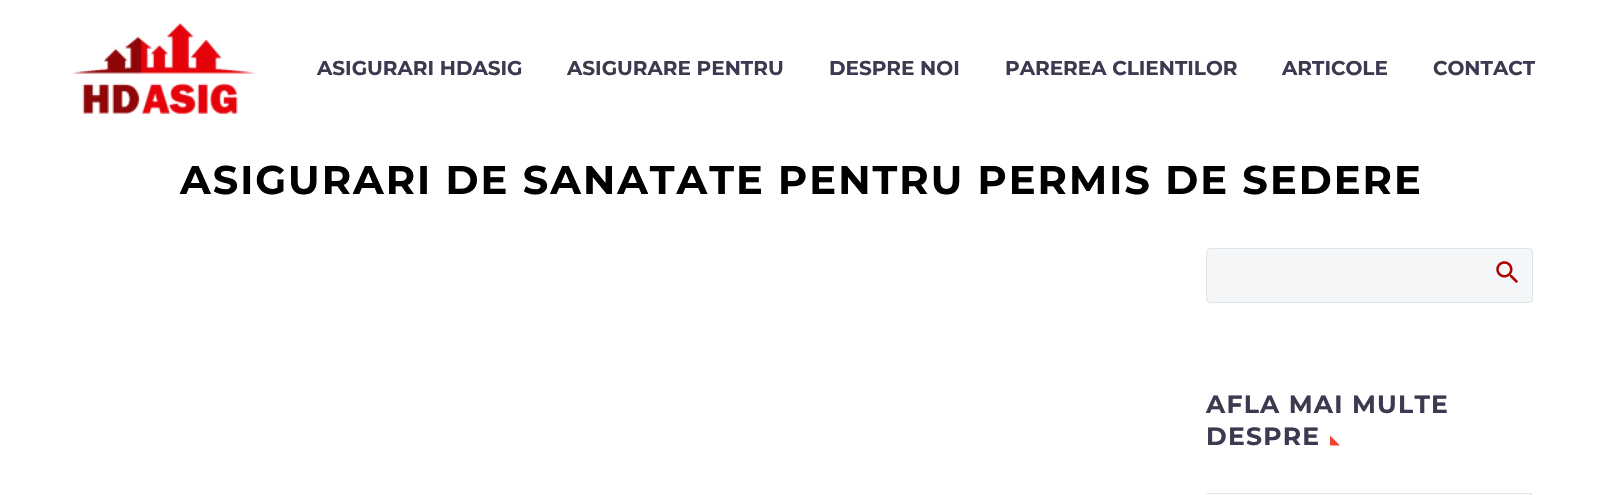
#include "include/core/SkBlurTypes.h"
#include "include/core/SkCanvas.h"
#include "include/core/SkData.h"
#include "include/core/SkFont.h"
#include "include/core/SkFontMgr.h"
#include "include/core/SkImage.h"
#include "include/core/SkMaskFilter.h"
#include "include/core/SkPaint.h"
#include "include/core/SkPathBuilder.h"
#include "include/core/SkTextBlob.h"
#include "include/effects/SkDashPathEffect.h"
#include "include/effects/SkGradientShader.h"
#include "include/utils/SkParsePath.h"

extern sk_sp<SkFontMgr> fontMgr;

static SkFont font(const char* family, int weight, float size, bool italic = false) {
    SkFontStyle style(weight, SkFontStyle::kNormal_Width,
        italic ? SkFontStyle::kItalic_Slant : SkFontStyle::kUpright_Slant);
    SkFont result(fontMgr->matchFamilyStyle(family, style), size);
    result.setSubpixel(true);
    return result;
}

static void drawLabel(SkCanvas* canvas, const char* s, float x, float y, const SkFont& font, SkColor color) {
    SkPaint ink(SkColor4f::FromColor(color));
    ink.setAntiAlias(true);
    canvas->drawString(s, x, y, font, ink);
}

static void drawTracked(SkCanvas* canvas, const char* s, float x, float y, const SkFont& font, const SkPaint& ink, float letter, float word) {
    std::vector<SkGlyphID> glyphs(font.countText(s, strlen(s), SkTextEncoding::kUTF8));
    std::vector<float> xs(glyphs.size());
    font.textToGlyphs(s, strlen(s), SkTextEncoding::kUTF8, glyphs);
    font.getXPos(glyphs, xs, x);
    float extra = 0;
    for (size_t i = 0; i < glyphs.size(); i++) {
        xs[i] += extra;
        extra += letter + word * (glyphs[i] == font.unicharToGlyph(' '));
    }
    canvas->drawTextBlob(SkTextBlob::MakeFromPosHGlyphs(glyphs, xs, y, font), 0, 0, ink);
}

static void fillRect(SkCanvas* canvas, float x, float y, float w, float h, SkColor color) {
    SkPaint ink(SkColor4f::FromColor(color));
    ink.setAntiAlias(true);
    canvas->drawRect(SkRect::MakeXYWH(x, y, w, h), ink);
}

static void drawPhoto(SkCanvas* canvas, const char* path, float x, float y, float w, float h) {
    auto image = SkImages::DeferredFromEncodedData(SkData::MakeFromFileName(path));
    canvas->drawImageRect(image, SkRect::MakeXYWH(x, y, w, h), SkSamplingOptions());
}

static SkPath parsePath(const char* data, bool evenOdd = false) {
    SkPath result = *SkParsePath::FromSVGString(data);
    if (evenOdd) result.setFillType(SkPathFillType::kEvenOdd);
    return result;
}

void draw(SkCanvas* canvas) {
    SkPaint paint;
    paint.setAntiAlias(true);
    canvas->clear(0xFFFFFFFF);
    drawPhoto(canvas, "assets/img1.png", 73, 23, 181, 91);
    SkFont font1 = font("Montserrat", 700, 20);
    drawLabel(canvas, "ASIGURARI HDASIG", 317, 75, font1, 0xFF3C3950);
    drawLabel(canvas, "ASIGURARE PENTRU", 567, 75, font1, 0xFF3C3950);
    drawLabel(canvas, "DESPRE NOI", 829, 75, font1, 0xFF3C3950);
    drawLabel(canvas, "PAREREA CLIENTILOR", 1005, 75, font1, 0xFF3C3950);
    drawLabel(canvas, "ARTICOLE", 1282, 75, font1, 0xFF3C3950);
    drawLabel(canvas, "CONTACT", 1433, 75, font1, 0xFF3C3950);
    SkFont font2 = font("Montserrat", 700, 40);
    paint.setColor(0xFF000000);
    drawTracked(canvas, "ASIGURARI DE SANATATE PENTRU PERMIS DE SEDERE", 180, 194, font2, paint, 2, 0);
    paint.setColor(0xFFF4F6F7);
    canvas->drawRoundRect(SkRect::MakeXYWH(1206.5f, 248.5f, 326, 54), 3.5f, 3.5f, paint);
    paint.setStroke(true);
    paint.setStrokeWidth(1);
    paint.setColor(0xFFDFE5E8);
    canvas->drawRoundRect(SkRect::MakeXYWH(1206.5f, 248.5f, 326, 54), 3.5f, 3.5f, paint);
    drawPhoto(canvas, "assets/img2.png", 1496, 261, 22, 22);
    SkFont font3 = font("Montserrat", 700, 25);
    paint.setStroke(false);
    paint.setColor(0xFF3C3950);
    drawTracked(canvas, "AFLA MAI MULTE", 1206, 413, font3, paint, 1.25f, 0);
    drawTracked(canvas, "DESPRE", 1206, 445, font3, paint, 1.25f, 0);
    paint.setColor(0xFFF44336);
    canvas->drawPath(parsePath("M1330 435.5V445.5H1340Z"), paint);
    fillRect(canvas, 1531, 493, 1, 2, 0xFFDFE5E8);
    fillRect(canvas, 1206, 493, 1, 2, 0xFFDFE5E8);
    fillRect(canvas, 1208, 493, 323, 1, 0xFFDFE5E8);
}
